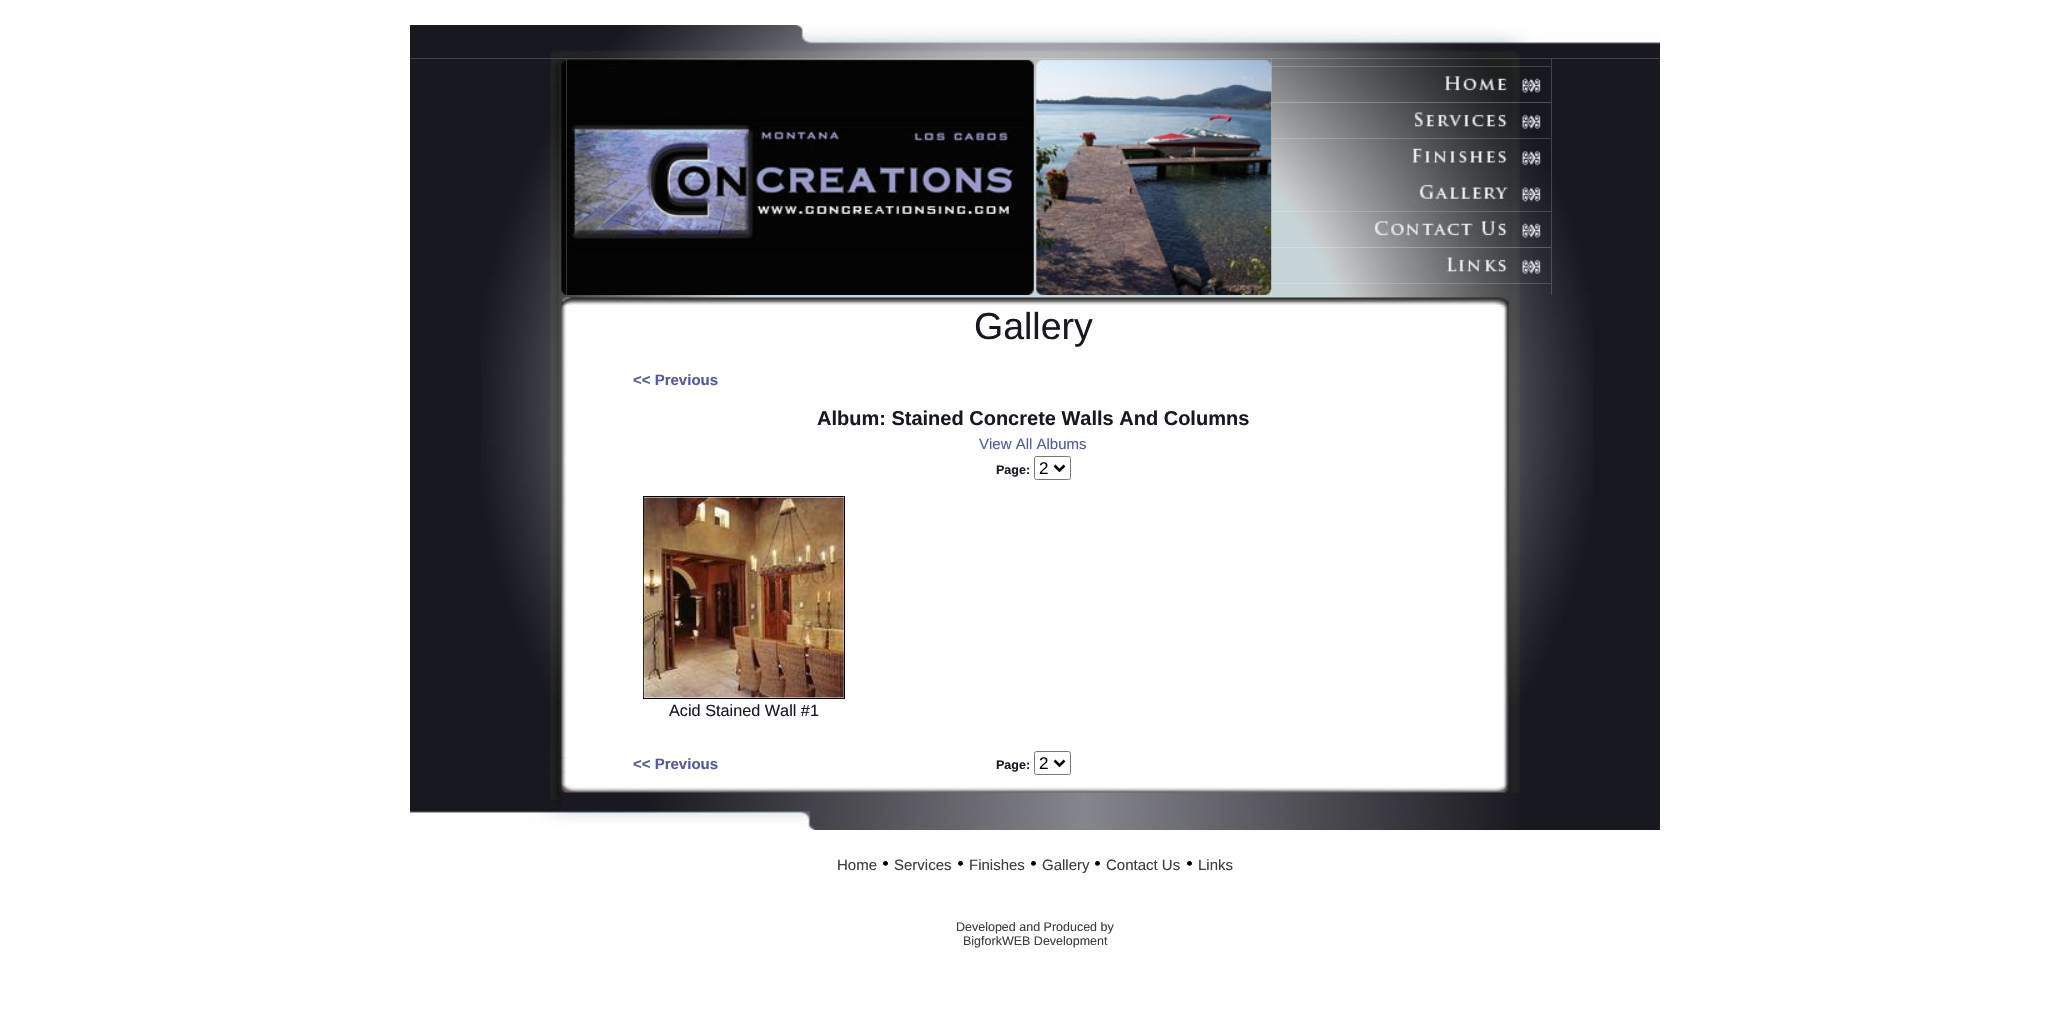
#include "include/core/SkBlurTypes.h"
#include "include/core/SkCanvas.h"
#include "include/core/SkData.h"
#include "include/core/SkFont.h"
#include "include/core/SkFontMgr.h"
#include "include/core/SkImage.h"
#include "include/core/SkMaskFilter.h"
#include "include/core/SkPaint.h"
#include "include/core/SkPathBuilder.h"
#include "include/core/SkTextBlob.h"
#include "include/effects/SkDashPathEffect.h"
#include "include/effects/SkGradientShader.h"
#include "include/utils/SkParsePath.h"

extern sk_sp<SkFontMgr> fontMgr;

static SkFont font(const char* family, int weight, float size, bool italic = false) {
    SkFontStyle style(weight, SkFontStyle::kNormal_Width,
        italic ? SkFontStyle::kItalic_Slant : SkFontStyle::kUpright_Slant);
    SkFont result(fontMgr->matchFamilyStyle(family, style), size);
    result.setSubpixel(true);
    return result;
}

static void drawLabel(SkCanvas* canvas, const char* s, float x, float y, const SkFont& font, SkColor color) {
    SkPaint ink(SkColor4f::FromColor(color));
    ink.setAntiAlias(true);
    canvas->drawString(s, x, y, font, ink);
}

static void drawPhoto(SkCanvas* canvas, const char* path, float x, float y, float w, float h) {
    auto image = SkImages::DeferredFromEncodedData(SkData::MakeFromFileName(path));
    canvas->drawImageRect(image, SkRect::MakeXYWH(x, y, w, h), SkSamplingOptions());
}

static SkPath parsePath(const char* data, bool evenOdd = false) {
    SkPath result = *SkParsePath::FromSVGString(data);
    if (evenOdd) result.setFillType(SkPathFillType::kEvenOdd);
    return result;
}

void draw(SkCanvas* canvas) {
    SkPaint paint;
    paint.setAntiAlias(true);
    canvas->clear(0xFFFFFFFF);
    drawPhoto(canvas, "assets/img1.png", 410, 25, 1250, 34);
    drawPhoto(canvas, "assets/img2.png", 410, 58, 157, 237);
    drawPhoto(canvas, "assets/img3.png", 566, 58, 469, 237);
    drawPhoto(canvas, "assets/img5.png", 1271, 58, 281, 9);
    drawPhoto(canvas, "assets/img6.png", 1271, 66, 281, 37);
    drawPhoto(canvas, "assets/img7.png", 1271, 102, 281, 37);
    drawPhoto(canvas, "assets/img8.png", 1271, 138, 281, 37);
    drawPhoto(canvas, "assets/img9.png", 1271, 175, 281, 37);
    drawPhoto(canvas, "assets/img10.png", 1271, 211, 281, 37);
    drawPhoto(canvas, "assets/img11.png", 1271, 247, 281, 37);
    drawPhoto(canvas, "assets/img12.png", 1271, 283, 281, 12);
    drawPhoto(canvas, "assets/img4.png", 1035, 58, 237, 237);
    drawPhoto(canvas, "assets/img13.png", 1551, 58, 109, 237);
    drawPhoto(canvas, "assets/img14.png", 410, 295, 1250, 10);
    drawPhoto(canvas, "assets/img15.png", 410, 305, 157, 480);
    drawPhoto(canvas, "assets/img16.png", 481, 305, 86, 440);
    SkFont font1 = font("Liberation Sans", 400, 37.5f);
    drawLabel(canvas, "Gallery", 974, 339, font1, 0xFF181820);
    SkFont font2 = font("Liberation Sans", 700, 15);
    drawLabel(canvas, "<< Previous", 633, 385, font2, 0xFF5556A8);
    SkFont font3 = font("Liberation Sans", 700, 20);
    drawLabel(canvas, "Album: Stained Concrete Walls And Columns", 817, 425, font3, 0xFF181820);
    SkFont font4 = font("Liberation Sans", 400, 15);
    drawLabel(canvas, "View All Albums", 979, 449, font4, 0xFF5556A8);
    SkFont font5 = font("Liberation Sans", 700, 12.5f);
    drawLabel(canvas, "Page:", 996, 474, font5, 0xFF181820);
    paint.setStroke(true);
    paint.setStrokeWidth(1);
    paint.setColor(0xFF767676);
    canvas->drawRoundRect(SkRect::MakeXYWH(1034.5f, 456.5f, 36, 23), 2, 2, paint);
    paint.setStrokeWidth(2.5f);
    paint.setColor(0xFF000000);
    canvas->drawPath(parsePath("M1054.5 465.5L1059.5 470.5L1064.5 465.5"), paint);
    SkFont font6 = font("Liberation Sans", 400, 17);
    drawLabel(canvas, "2", 1039, 474, font6, 0xFF000000);
    paint.setStrokeWidth(1);
    canvas->drawRect(SkRect::MakeXYWH(643.5f, 496.5f, 201, 202), paint);
    drawPhoto(canvas, "assets/img17.png", 643, 497, 201, 201);
    SkFont font7 = font("Liberation Sans", 400, 16.25f);
    drawLabel(canvas, "Acid Stained Wall #1", 669, 716, font7, 0xFF181820);
    drawLabel(canvas, "<< Previous", 633, 769, font2, 0xFF5556A8);
    drawLabel(canvas, "Page:", 996, 769, font5, 0xFF181820);
    paint.setColor(0xFF767676);
    canvas->drawRoundRect(SkRect::MakeXYWH(1034.5f, 751.5f, 36, 23), 2, 2, paint);
    paint.setStrokeWidth(2.5f);
    paint.setColor(0xFF000000);
    canvas->drawPath(parsePath("M1054.5 760.5L1059.5 765.5L1064.5 760.5"), paint);
    drawLabel(canvas, "2", 1039, 769, font6, 0xFF000000);
    drawPhoto(canvas, "assets/img18.png", 1503, 305, 157, 480);
    drawPhoto(canvas, "assets/img19.png", 1500, 305, 93, 399);
    drawPhoto(canvas, "assets/img20.png", 410, 785, 1250, 45);
    drawLabel(canvas, "Home", 837, 870, font4, 0xFF3D3D3D);
    SkFont font8 = font("Liberation Serif", 400, 20);
    drawLabel(canvas, "•", 882, 870, font8, 0xFF000000);
    drawLabel(canvas, "Services", 894, 870, font4, 0xFF3D3D3D);
    drawLabel(canvas, "•", 957, 870, font8, 0xFF000000);
    drawLabel(canvas, "Finishes", 969, 870, font4, 0xFF3D3D3D);
    drawLabel(canvas, "•", 1030, 870, font8, 0xFF000000);
    drawLabel(canvas, "Gallery", 1042, 870, font4, 0xFF3D3D3D);
    drawLabel(canvas, "•", 1094, 870, font8, 0xFF000000);
    drawLabel(canvas, "Contact Us", 1106, 870, font4, 0xFF3D3D3D);
    drawLabel(canvas, "•", 1186, 870, font8, 0xFF000000);
    drawLabel(canvas, "Links", 1198, 870, font4, 0xFF3D3D3D);
    SkFont font9 = font("Liberation Sans", 400, 12.5f);
    drawLabel(canvas, "Developed and Produced by", 956, 931, font9, 0xFF3D3D3D);
    drawLabel(canvas, "BigforkWEB Development", 963, 945, font9, 0xFF3D3D3D);
}
